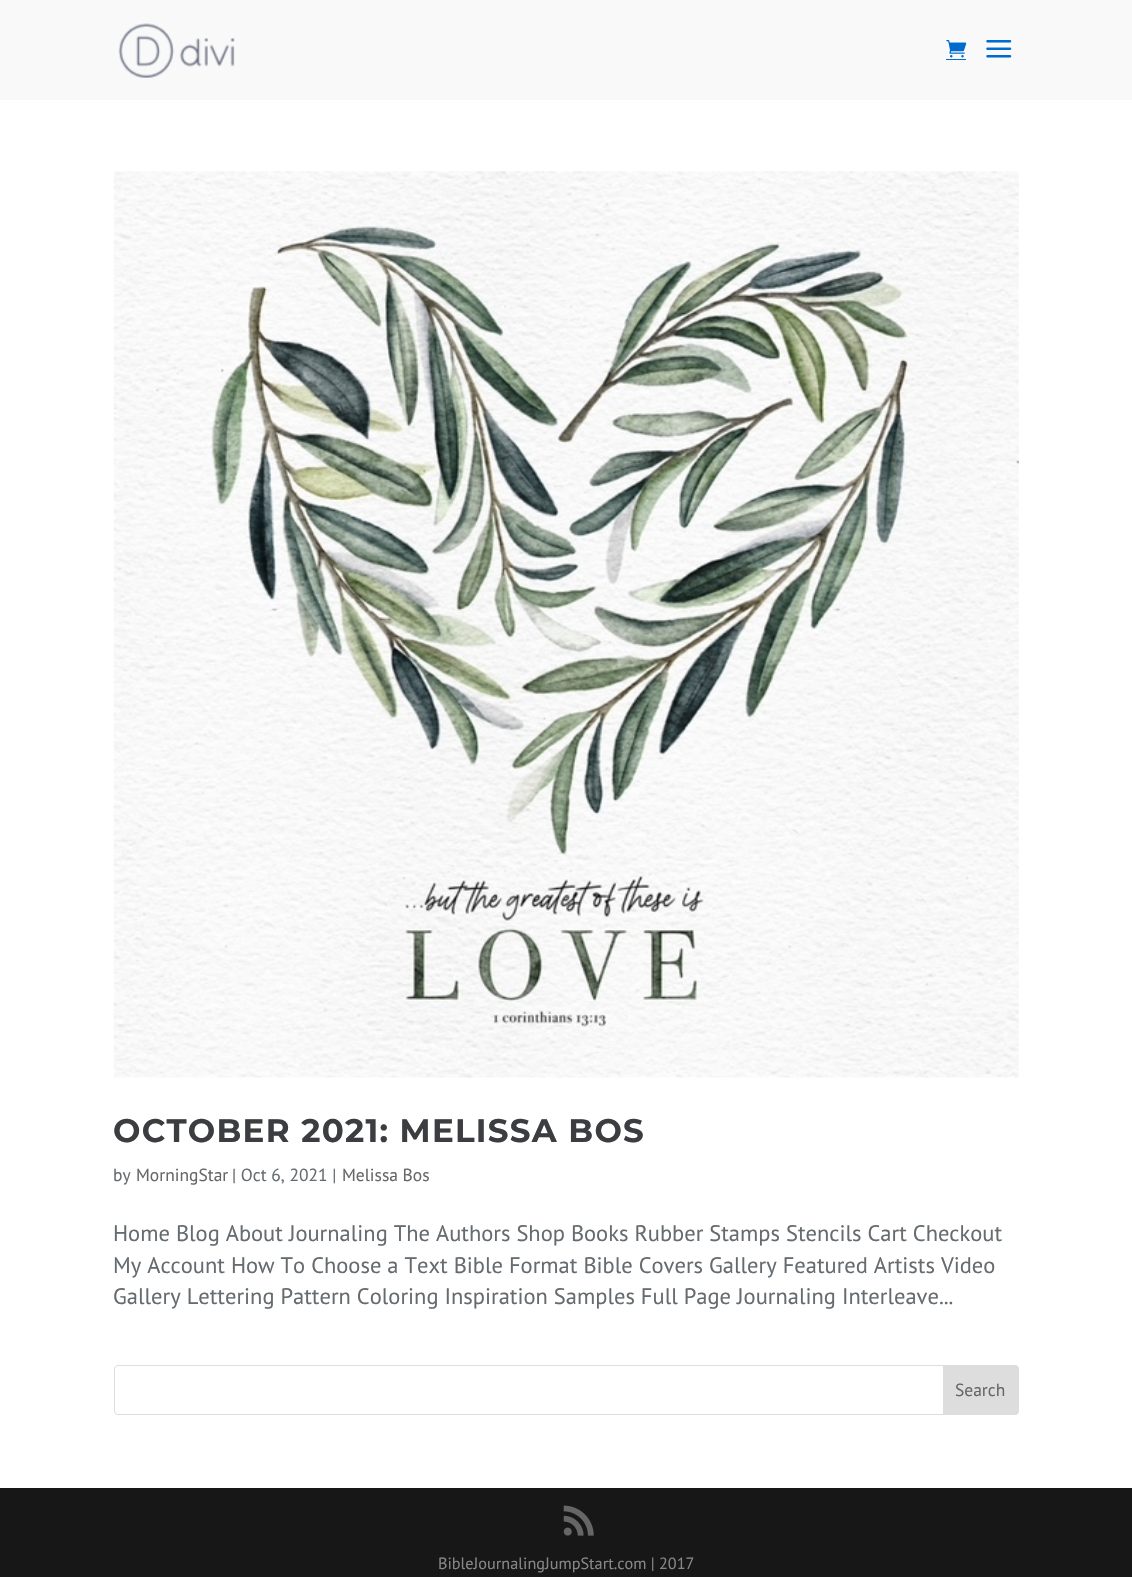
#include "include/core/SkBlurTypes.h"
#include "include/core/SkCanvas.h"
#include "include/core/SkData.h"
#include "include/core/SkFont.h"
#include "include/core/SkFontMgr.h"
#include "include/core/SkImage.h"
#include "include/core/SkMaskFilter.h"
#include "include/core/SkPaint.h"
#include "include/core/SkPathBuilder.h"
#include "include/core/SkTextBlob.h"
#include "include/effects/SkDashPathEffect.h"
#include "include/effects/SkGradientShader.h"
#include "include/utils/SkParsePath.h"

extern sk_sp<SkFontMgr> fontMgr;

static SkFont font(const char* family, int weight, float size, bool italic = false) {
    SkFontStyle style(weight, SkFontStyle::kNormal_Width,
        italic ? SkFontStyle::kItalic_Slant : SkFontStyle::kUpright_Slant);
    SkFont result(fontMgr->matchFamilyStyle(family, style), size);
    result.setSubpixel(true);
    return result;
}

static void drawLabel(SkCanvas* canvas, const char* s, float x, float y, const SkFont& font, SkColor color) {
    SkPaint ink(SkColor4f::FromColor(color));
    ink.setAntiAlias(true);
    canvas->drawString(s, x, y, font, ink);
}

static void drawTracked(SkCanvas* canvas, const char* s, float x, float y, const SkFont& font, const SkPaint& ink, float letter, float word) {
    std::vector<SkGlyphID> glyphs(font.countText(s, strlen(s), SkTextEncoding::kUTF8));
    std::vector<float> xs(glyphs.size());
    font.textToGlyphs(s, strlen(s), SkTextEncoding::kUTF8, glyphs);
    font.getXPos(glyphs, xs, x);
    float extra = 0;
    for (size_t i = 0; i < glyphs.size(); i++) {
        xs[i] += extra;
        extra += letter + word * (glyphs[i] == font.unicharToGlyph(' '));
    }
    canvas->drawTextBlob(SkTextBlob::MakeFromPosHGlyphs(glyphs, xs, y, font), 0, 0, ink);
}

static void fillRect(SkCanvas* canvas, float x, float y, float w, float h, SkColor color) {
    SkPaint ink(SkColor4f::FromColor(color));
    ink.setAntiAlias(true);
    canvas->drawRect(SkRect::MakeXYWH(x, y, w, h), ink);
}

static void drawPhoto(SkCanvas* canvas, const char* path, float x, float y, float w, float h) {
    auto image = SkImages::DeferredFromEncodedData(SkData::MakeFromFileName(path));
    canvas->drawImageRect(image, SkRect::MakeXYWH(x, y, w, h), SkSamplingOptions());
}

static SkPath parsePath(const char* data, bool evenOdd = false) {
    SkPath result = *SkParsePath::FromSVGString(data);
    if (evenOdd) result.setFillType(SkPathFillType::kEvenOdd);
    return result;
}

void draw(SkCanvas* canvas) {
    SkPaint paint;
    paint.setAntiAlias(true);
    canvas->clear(0xFFFFFFFF);
    fillRect(canvas, 0, 0, 1132, 100, 0xFFF9F9F9);
    drawPhoto(canvas, "assets/img1.png", 118, 23, 117, 55);
    drawPhoto(canvas, "assets/img2.png", 946, 40, 21, 18);
    fillRect(canvas, 946, 59, 20, 1, 0xFF016BCD);
    drawPhoto(canvas, "assets/img3.png", 986, 40, 26, 18);
    drawPhoto(canvas, "assets/img4.png", 113, 171, 906, 907);
    SkFont font1 = font("Montserrat", 700, 32.5f);
    paint.setColor(0xFF3C3D41);
    drawTracked(canvas, "OCTOBER 2021: MELISSA BOS", 113, 1142, font1, paint, 1.25f, 0);
    SkFont font2 = font("PT Sans", 400, 17.5f);
    drawLabel(canvas, "by", 113, 1181, font2, 0xFF656B6F);
    drawLabel(canvas, "MorningStar", 136, 1181, font2, 0xFF666666);
    drawLabel(canvas, "| Oct 6, 2021 |", 232, 1181, font2, 0xFF656B6F);
    drawLabel(canvas, "Melissa Bos", 342, 1181, font2, 0xFF666666);
    SkFont font3 = font("PT Sans", 400, 22.5f);
    drawLabel(canvas, "Home Blog About Journaling The Authors Shop Books Rubber Stamps Stencils Cart Checkout", 113, 1241, font3, 0xFF656B6F);
    drawLabel(canvas, "My Account How To Choose a Text Bible Format Bible Covers Gallery Featured Artists Video", 113, 1273, font3, 0xFF656B6F);
    drawLabel(canvas, "Gallery Lettering Pattern Coloring Inspiration Samples Full Page Journaling Interleave...", 113, 1304, font3, 0xFF656B6F);
    paint.setStroke(true);
    paint.setStrokeWidth(1);
    paint.setColor(0xFFDDDDDD);
    canvas->drawRoundRect(SkRect::MakeXYWH(114.5f, 1365.5f, 904, 49), 3.5f, 3.5f, paint);
    paint.setStroke(false);
    canvas->drawPath(parsePath("M943.5 1365.5H1015C1017 1365.5 1018.5 1367 1018.5 1369V1411C1018.5 1413 1017 1414.5 1015 1414.5H943.5Z"), paint);
    paint.setStroke(true);
    canvas->drawPath(parsePath("M943.5 1365.5H1015C1017 1365.5 1018.5 1367 1018.5 1369V1411C1018.5 1413 1017 1414.5 1015 1414.5H943.5Z"), paint);
    drawLabel(canvas, "Search", 955, 1396, font2, 0xFF666666);
    fillRect(canvas, 0, 1488, 1132, 89, 0xFF171717);
    drawPhoto(canvas, "assets/img5.png", 563, 1505, 31, 31);
    SkFont font4 = font("PT Sans", 400, 16.25f);
    drawLabel(canvas, "BibleJournalingJumpStart.com | 2017", 438, 1569, font4, 0xFF878787);
}
